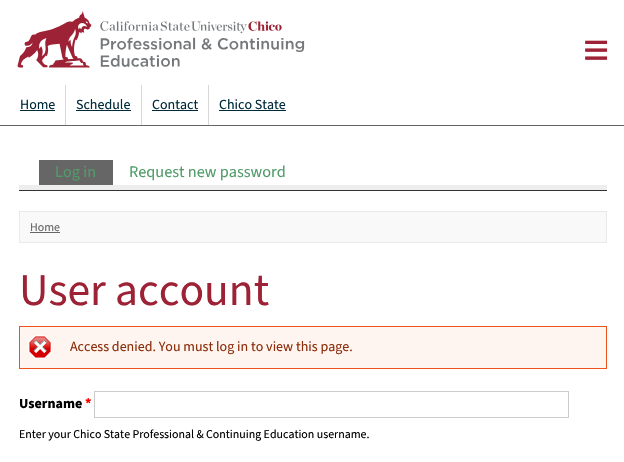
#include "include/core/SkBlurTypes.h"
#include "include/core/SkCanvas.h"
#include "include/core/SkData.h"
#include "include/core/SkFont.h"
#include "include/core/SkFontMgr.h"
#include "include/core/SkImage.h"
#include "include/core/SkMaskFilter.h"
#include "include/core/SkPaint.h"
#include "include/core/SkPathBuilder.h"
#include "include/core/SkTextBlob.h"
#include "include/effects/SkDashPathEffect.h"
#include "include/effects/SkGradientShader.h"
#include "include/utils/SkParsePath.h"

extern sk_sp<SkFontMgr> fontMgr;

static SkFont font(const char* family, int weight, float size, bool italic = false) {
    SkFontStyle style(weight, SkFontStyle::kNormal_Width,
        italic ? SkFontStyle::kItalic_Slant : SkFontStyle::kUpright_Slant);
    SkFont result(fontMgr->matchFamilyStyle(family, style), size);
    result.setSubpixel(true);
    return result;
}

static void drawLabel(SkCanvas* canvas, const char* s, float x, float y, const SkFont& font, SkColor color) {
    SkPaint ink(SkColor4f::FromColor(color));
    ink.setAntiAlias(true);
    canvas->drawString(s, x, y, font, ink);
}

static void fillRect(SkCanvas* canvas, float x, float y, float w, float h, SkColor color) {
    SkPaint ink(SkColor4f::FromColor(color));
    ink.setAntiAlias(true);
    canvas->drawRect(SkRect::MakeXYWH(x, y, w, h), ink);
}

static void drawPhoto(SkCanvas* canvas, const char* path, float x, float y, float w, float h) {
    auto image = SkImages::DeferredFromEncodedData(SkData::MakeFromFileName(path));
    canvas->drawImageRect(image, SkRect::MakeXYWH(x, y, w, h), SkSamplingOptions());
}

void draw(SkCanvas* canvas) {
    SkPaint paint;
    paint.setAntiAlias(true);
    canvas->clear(0xFFFFFFFF);
    drawPhoto(canvas, "assets/img1.png", 17, 11, 288, 57);
    SkFont font1 = font("Liberation Sans", 400, 45);
    drawLabel(canvas, "≡", 583, 65, font1, 0xFF9D2235);
    SkFont font2 = font("Source Sans Pro", 400, 14);
    drawLabel(canvas, "Home", 20, 109, font2, 0xFF002A3A);
    fillRect(canvas, 20, 110, 35, 1, 0xFF002A3A);
    fillRect(canvas, 65, 85, 1, 40, 0xFFD9D8D6);
    drawLabel(canvas, "Schedule", 76, 109, font2, 0xFF002A3A);
    fillRect(canvas, 76, 110, 55, 1, 0xFF002A3A);
    fillRect(canvas, 141, 85, 1, 40, 0xFFD9D8D6);
    drawLabel(canvas, "Contact", 152, 109, font2, 0xFF002A3A);
    fillRect(canvas, 152, 110, 46, 1, 0xFF002A3A);
    fillRect(canvas, 208, 85, 1, 40, 0xFFD9D8D6);
    drawLabel(canvas, "Chico State", 219, 109, font2, 0xFF002A3A);
    fillRect(canvas, 219, 110, 67, 1, 0xFF002A3A);
    fillRect(canvas, 0, 125, 624, 1, 0xFF636567);
    fillRect(canvas, 19, 190, 588, 1, 0xFF333333);
    fillRect(canvas, 19, 185, 588, 5, 0xFFEEEEEE);
    fillRect(canvas, 39, 160, 74, 25, 0xFF666666);
    SkFont font3 = font("Source Sans Pro", 400, 16.25f);
    drawLabel(canvas, "Log in", 55, 177, font3, 0xFF519B69);
    drawLabel(canvas, "Request new password", 129, 177, font3, 0xFF519B69);
    paint.setColor(0xFFF9F9F9);
    canvas->drawRect(SkRect::MakeXYWH(19.5f, 211.5f, 587, 31), paint);
    paint.setStroke(true);
    paint.setStrokeWidth(1);
    paint.setColor(0xFFE9E9E9);
    canvas->drawRect(SkRect::MakeXYWH(19.5f, 211.5f, 587, 31), paint);
    SkFont font4 = font("Source Sans Pro", 400, 11.9f);
    drawLabel(canvas, "Home", 30, 231, font4, 0xFF666666);
    fillRect(canvas, 30, 232, 30, 1, 0xFF666666);
    SkFont font5 = font("Source Sans Pro", 400, 45.5f);
    drawLabel(canvas, "User account", 19, 305, font5, 0xFF9D2235);
    fillRect(canvas, 20, 327, 586, 41, 0xFFFEF5F1);
    drawPhoto(canvas, "assets/img2.png", 28, 335, 24, 24);
    paint.setColor(0xFFED541D);
    canvas->drawRect(SkRect::MakeXYWH(19.5f, 326.5f, 587, 42), paint);
    drawLabel(canvas, "Access denied. You must log in to view this page.", 70, 351, font2, 0xFF8C2E0B);
    SkFont font6 = font("Source Sans Pro", 700, 14);
    drawLabel(canvas, "Username", 19, 408, font6, 0xFF000000);
    drawLabel(canvas, "*", 85, 408, font6, 0xFFFF0000);
    paint.setColor(0xFFCCCCCC);
    canvas->drawRect(SkRect::MakeXYWH(94.5f, 391.5f, 474, 26), paint);
    drawLabel(canvas, "Enter your Chico State Professional & Continuing Education username.", 19, 438, font4, 0xFF000000);
}
